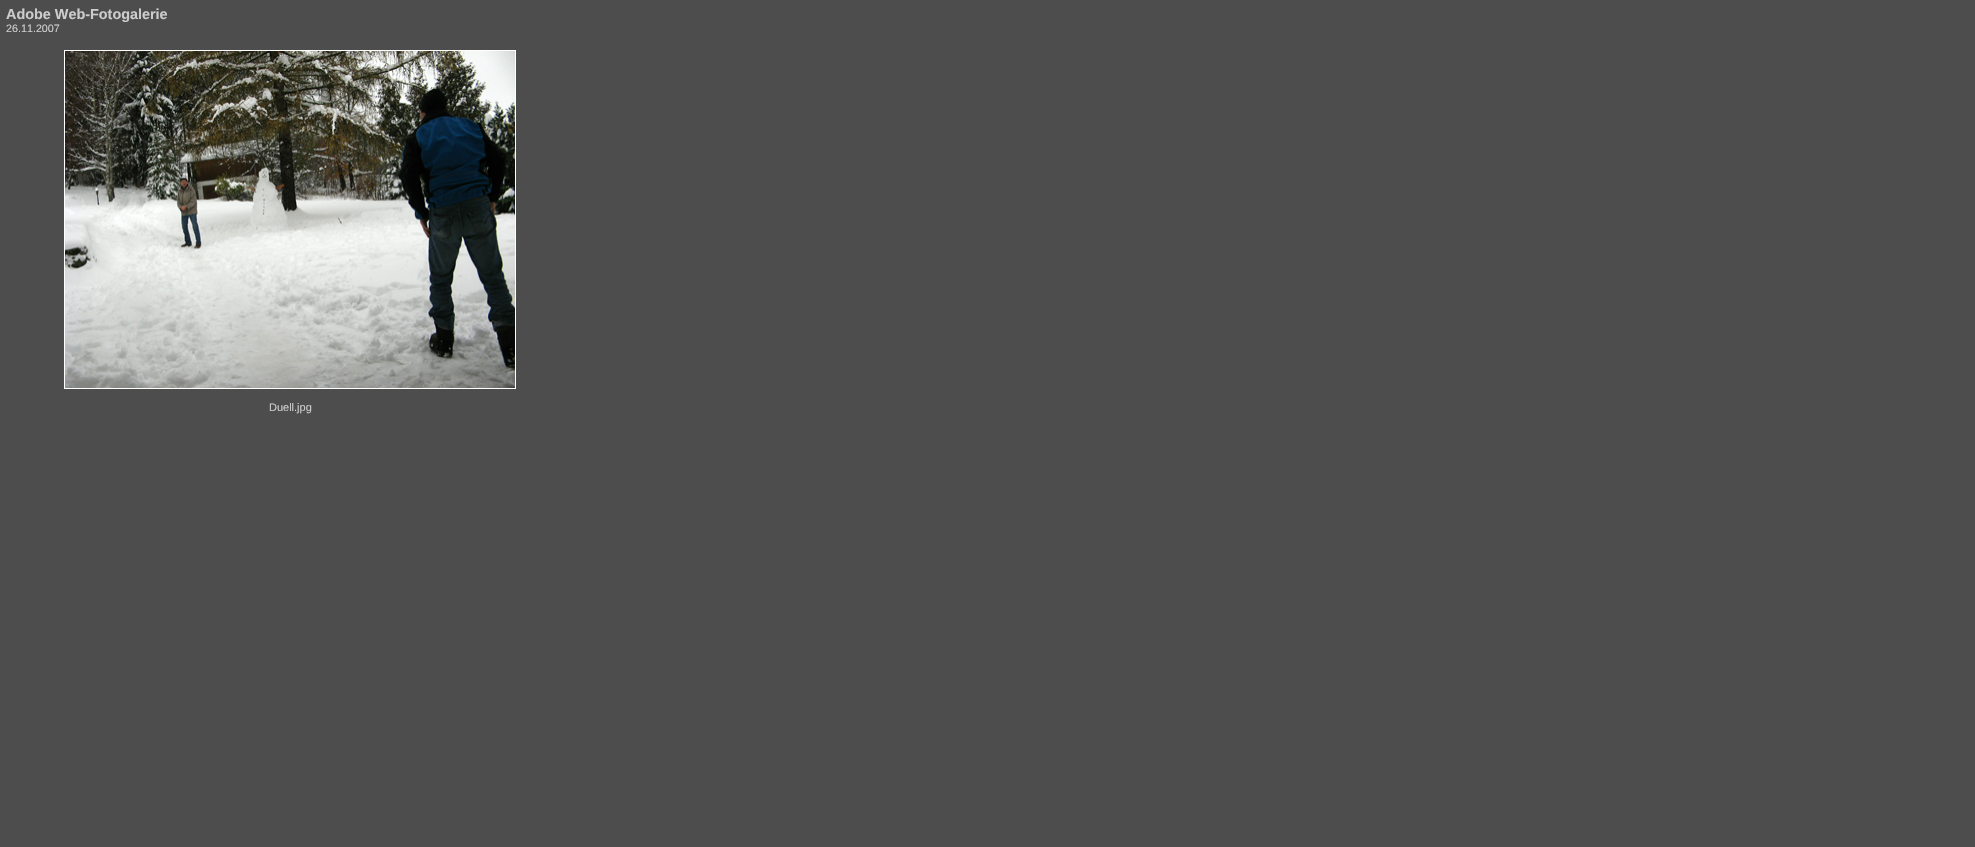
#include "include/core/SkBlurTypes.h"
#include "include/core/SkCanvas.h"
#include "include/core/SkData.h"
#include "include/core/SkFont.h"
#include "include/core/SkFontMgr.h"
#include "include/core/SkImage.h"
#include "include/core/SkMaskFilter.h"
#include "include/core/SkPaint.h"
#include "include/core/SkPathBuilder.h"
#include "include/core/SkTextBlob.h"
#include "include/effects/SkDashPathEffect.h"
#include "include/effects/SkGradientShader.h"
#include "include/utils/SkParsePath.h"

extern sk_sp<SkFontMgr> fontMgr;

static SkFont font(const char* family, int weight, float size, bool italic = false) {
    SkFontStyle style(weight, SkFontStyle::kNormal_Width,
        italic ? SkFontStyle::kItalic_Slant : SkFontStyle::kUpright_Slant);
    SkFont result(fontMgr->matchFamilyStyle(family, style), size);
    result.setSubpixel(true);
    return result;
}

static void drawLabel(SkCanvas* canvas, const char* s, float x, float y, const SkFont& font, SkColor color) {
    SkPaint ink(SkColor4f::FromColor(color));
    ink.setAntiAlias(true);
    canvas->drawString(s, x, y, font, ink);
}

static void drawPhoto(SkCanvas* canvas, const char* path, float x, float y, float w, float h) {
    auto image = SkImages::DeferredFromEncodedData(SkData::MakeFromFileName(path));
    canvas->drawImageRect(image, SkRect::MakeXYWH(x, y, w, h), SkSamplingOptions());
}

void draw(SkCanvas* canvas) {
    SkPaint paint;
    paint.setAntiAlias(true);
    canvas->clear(0xFF4E4D4D);
    SkFont font1 = font("Liberation Sans", 700, 14.4f);
    drawLabel(canvas, "Adobe Web-Fotogalerie", 6, 19, font1, 0xFFCCCCCC);
    SkFont font2 = font("Liberation Sans", 400, 10.75f);
    drawLabel(canvas, "26.11.2007", 6, 32, font2, 0xFFCCCCCC);
    paint.setStroke(true);
    paint.setStrokeWidth(1);
    paint.setColor(0xFFFFFFFF);
    canvas->drawRect(SkRect::MakeXYWH(64.5f, 50.5f, 451, 338), paint);
    drawPhoto(canvas, "assets/img1.png", 65, 51, 450, 337);
    SkFont font3 = font("Liberation Sans", 400, 11);
    drawLabel(canvas, "Duell.jpg", 269, 411, font3, 0xFFCCCCCC);
}
